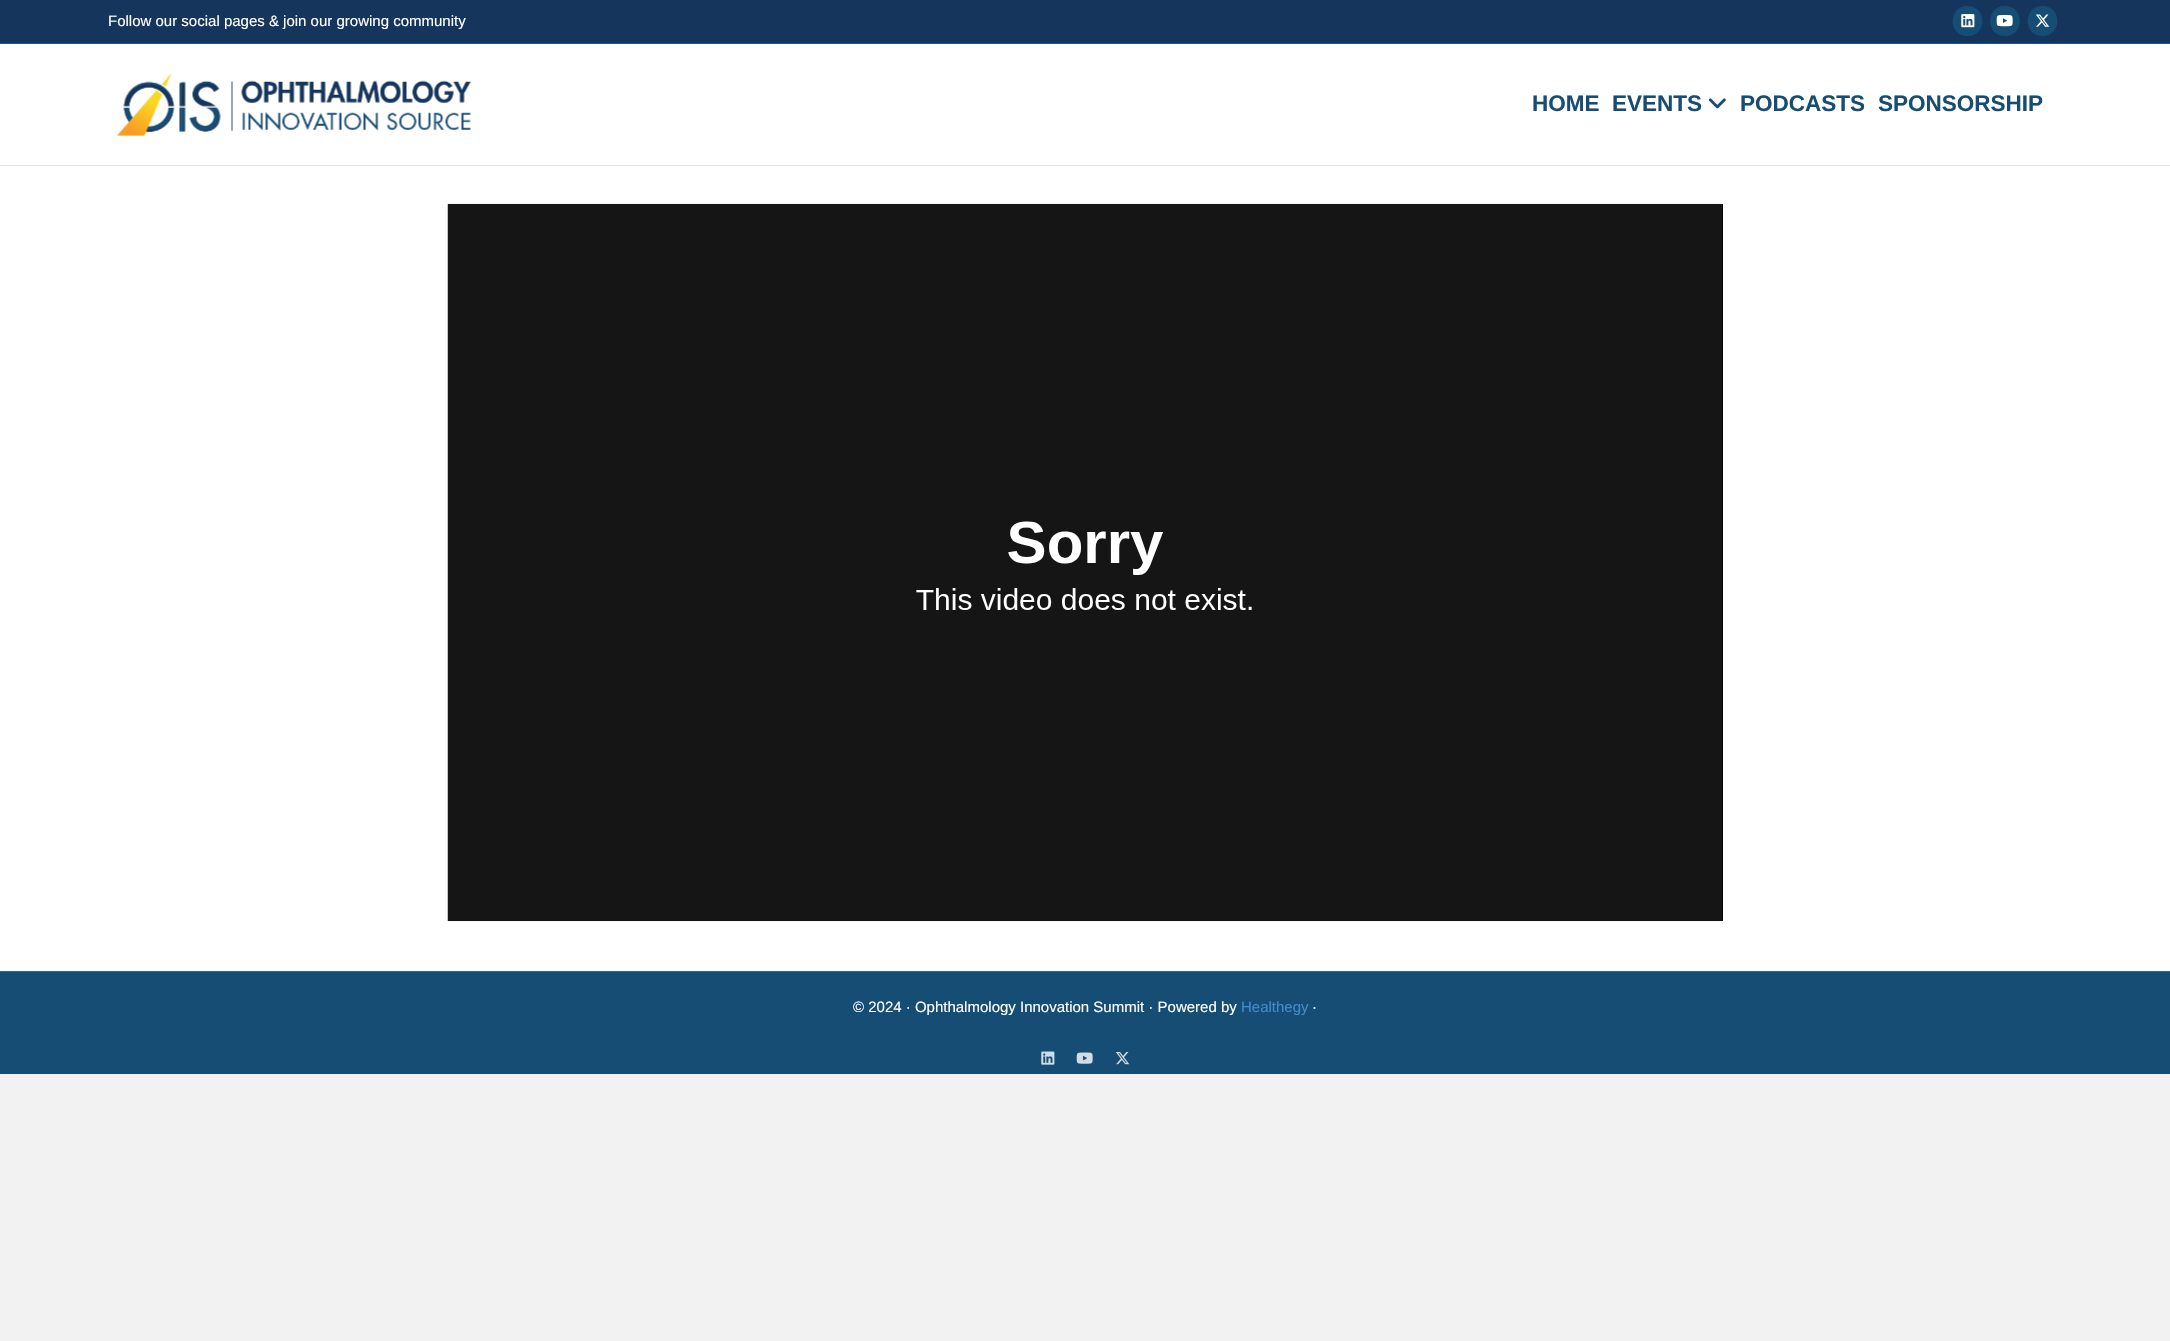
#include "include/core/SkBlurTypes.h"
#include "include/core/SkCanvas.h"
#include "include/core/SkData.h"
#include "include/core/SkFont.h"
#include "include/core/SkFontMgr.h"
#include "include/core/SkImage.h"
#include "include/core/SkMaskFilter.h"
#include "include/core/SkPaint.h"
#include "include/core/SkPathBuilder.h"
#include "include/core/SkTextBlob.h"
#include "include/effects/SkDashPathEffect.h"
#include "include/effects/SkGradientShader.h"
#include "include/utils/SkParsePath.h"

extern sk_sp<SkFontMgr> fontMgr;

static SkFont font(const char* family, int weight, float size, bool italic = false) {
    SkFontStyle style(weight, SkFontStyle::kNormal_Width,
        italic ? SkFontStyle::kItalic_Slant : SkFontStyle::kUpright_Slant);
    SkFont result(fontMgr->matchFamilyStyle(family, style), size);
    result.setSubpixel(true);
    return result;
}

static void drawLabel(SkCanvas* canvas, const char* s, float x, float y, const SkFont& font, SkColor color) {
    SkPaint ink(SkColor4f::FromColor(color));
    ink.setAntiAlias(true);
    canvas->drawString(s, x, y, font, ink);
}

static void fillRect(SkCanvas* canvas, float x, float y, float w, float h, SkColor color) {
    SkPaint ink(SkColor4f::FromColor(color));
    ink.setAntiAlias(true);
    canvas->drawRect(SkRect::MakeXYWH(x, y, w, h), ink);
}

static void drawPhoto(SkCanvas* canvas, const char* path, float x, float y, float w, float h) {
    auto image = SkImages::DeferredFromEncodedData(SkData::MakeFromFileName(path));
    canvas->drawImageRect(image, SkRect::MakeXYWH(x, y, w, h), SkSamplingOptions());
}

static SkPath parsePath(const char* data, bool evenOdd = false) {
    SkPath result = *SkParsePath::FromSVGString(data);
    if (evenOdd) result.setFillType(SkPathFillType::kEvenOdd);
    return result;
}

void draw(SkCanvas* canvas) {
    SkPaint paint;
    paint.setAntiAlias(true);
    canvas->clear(0xFFF2F2F2);
    fillRect(canvas, 0, 0, 2170, 43, 0xFF16355C);
    fillRect(canvas, 0, 43, 2170, 1, 0xFF235492);
    SkFont font1 = font("Liberation Sans", 400, 15);
    drawLabel(canvas, "Follow our social pages & join our growing community", 108, 26, font1, 0xFFFFFFFF);
    paint.setColor(0xFF164D75);
    canvas->drawPath(parsePath("M1967.5 36C1987.5 36 1987 6 1967.5 6C1948 6 1947.5 36 1967.5 36Z"), paint);
    drawPhoto(canvas, "assets/img1.png", 1961, 14, 14, 14);
    canvas->drawPath(parsePath("M2005 36C2025 36 2024.5 6 2005 6C1985.5 6 1985 36 2005 36Z"), paint);
    drawPhoto(canvas, "assets/img2.png", 1996, 15, 17, 12);
    canvas->drawPath(parsePath("M2042.5 36C2062.5 36 2062 6 2042.5 6C2023 6 2022.5 36 2042.5 36Z"), paint);
    drawPhoto(canvas, "assets/img3.png", 2035, 14, 15, 13);
    fillRect(canvas, 0, 44, 2170, 121, 0xFFFFFFFF);
    fillRect(canvas, 0, 165, 2170, 1, 0xFFE1E5EA);
    drawPhoto(canvas, "assets/img4.png", 116, 73, 355, 63);
    SkFont font2 = font("Liberation Sans", 700, 22.5f);
    drawLabel(canvas, "HOME", 1532, 111, font2, 0xFF164D75);
    drawLabel(canvas, "EVENTS", 1612, 111, font2, 0xFF164D75);
    drawPhoto(canvas, "assets/img5.png", 1708, 98, 18, 11);
    drawLabel(canvas, "PODCASTS", 1740, 111, font2, 0xFF164D75);
    drawLabel(canvas, "SPONSORSHIP", 1878, 111, font2, 0xFF164D75);
    fillRect(canvas, 0, 166, 2170, 805, 0xFFFFFFFF);
    fillRect(canvas, 1722, 204, 1, 717, 0xFF000000);
    drawPhoto(canvas, "assets/img6.png", 447, 203, 1275, 719);
    fillRect(canvas, 0, 972, 2170, 102, 0xFF164D75);
    fillRect(canvas, 0, 971, 2170, 1, 0xFF2072AD);
    drawLabel(canvas, "© 2024 · Ophthalmology Innovation Summit · Powered by", 853, 1012, font1, 0xFFFFFFFF);
    drawLabel(canvas, "Healthegy", 1241, 1012, font1, 0xFF428BCA);
    drawLabel(canvas, "·", 1312, 1012, font1, 0xFFFFFFFF);
    drawPhoto(canvas, "assets/img7.png", 1041, 1051, 14, 14);
    drawPhoto(canvas, "assets/img8.png", 1076, 1052, 17, 12);
    drawPhoto(canvas, "assets/img9.png", 1115, 1052, 15, 13);
}
